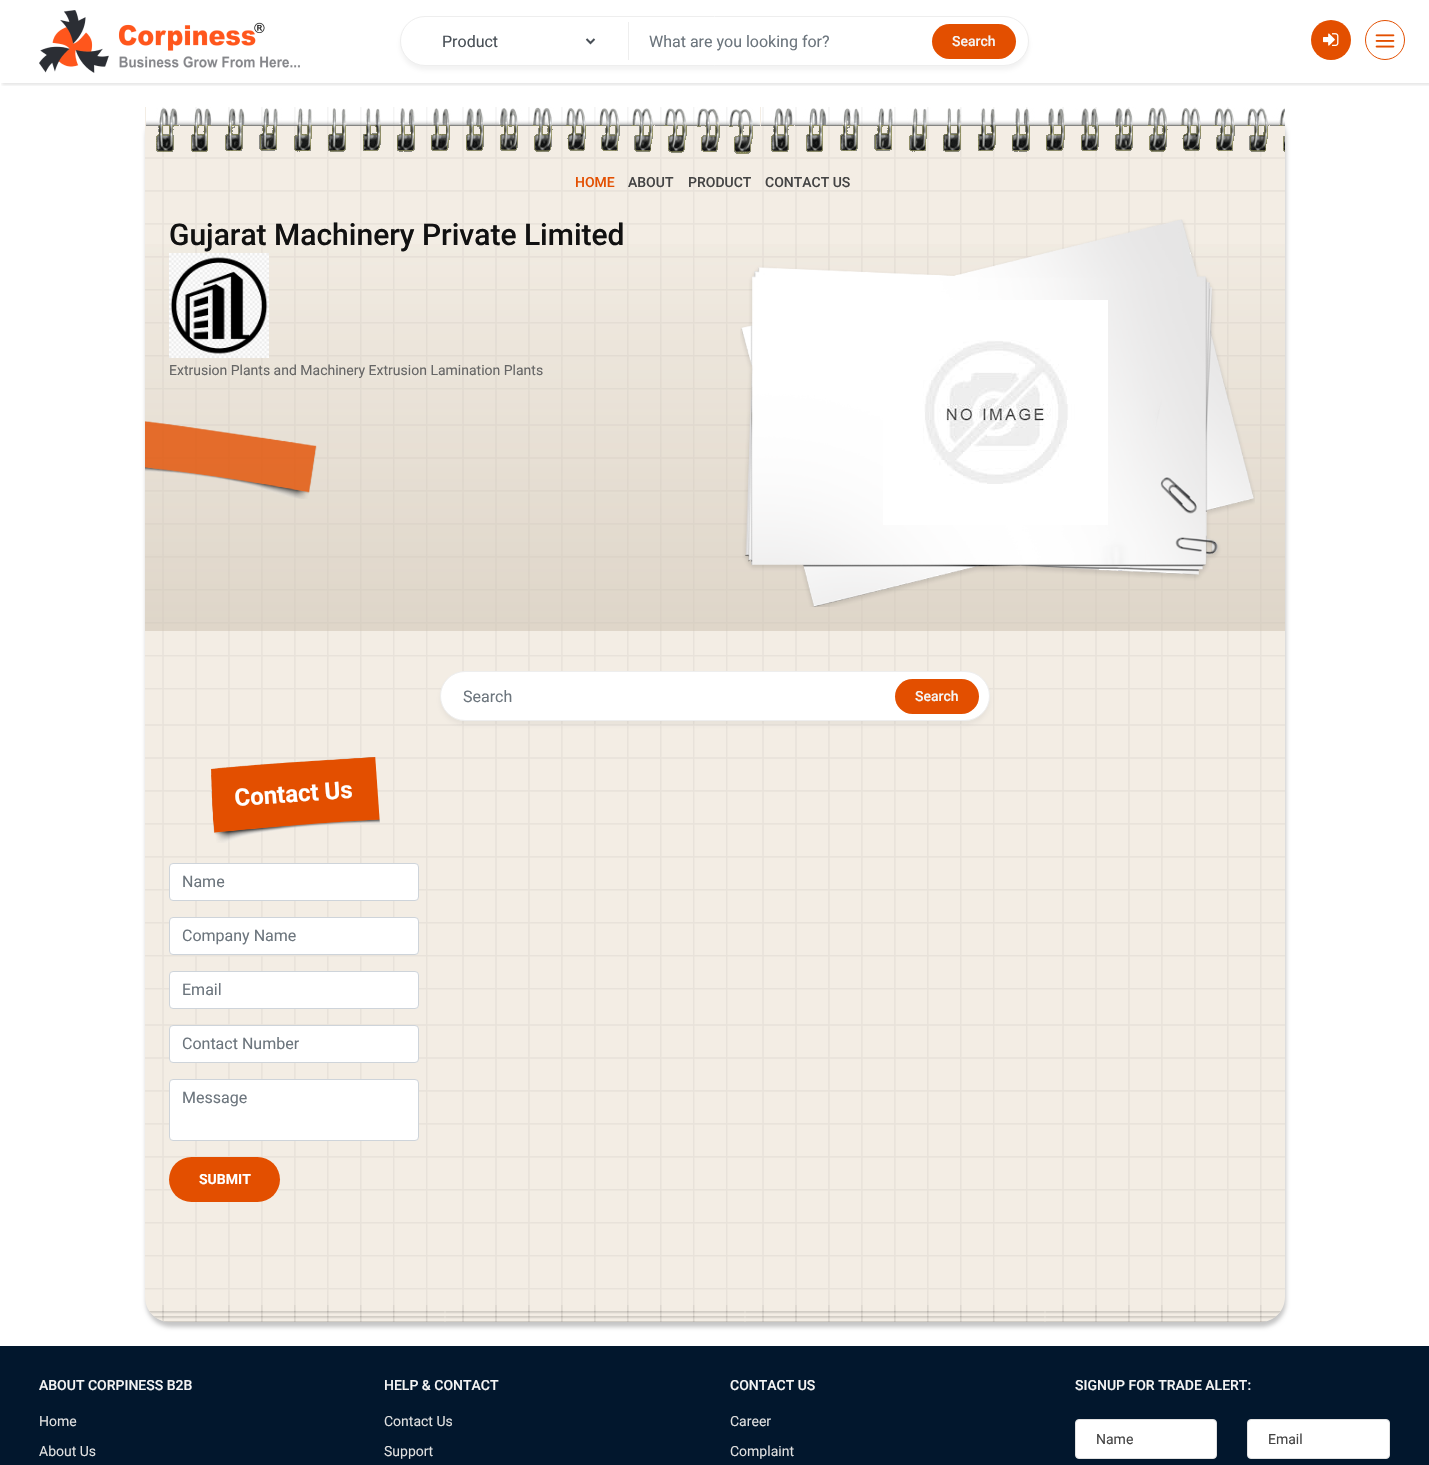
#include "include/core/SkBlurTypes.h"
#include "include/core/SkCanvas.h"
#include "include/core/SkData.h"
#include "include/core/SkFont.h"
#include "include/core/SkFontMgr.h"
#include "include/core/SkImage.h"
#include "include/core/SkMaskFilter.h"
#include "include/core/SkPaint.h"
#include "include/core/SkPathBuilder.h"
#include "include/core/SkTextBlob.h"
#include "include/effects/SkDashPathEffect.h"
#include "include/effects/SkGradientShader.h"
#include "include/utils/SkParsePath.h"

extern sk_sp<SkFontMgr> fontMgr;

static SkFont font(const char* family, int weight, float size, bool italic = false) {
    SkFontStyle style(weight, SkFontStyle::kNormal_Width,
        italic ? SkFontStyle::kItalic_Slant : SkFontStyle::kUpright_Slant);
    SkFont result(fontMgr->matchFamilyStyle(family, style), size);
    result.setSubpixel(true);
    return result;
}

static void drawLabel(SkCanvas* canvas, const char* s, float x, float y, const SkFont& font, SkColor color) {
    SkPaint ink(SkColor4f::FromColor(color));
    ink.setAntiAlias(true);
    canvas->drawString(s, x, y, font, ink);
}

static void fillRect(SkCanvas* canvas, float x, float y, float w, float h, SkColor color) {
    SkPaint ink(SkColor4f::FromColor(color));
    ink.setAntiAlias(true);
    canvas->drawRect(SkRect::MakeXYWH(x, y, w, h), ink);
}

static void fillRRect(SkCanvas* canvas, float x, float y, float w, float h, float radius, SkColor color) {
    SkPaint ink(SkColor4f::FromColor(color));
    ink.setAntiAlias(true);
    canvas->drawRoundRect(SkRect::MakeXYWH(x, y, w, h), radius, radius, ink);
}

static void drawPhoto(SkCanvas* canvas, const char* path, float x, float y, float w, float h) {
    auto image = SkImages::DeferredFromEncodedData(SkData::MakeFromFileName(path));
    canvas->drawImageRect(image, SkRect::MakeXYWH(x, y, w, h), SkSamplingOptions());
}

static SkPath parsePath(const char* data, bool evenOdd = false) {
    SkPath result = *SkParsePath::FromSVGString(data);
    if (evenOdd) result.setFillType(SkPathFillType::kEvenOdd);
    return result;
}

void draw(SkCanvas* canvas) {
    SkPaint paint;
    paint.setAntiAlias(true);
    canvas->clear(0xFFFFFFFF);
    canvas->save();
    canvas->clipRect(SkRect::MakeXYWH(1, 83, 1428, 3));
    paint.setColor(0x1A000000);
    paint.setMaskFilter(SkMaskFilter::MakeBlur(kNormal_SkBlurStyle, 1.5f));
    canvas->drawRect(SkRect::MakeXYWH(2, 2, 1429, 83), paint);
    paint.setMaskFilter(nullptr);
    canvas->restore();
    drawPhoto(canvas, "assets/img1.png", 39, 10, 261, 63);
    paint.setColor(0x1A7F7F7F);
    paint.setMaskFilter(SkMaskFilter::MakeBlur(kNormal_SkBlurStyle, 2));
    canvas->drawRoundRect(SkRect::MakeXYWH(400, 20, 629, 50), 25, 25, paint);
    paint.setMaskFilter(nullptr);
    paint.setColor(0xFFFFFFFF);
    canvas->drawRoundRect(SkRect::MakeXYWH(400.5f, 16.5f, 628, 49), 24.5f, 24.5f, paint);
    paint.setStroke(true);
    paint.setStrokeWidth(1);
    paint.setColor(0xFFEEEEEE);
    canvas->drawRoundRect(SkRect::MakeXYWH(400.5f, 16.5f, 628, 49), 24.5f, 24.5f, paint);
    paint.setStrokeWidth(2);
    paint.setColor(0xFF495057);
    canvas->drawPath(parsePath("M586.5 39L590.5 43L594.5 39"), paint);
    SkFont font1 = font("Roboto", 400, 16);
    drawLabel(canvas, "Product", 442, 47, font1, 0xFF495057);
    fillRect(canvas, 628, 22, 1, 38, 0xFFEEEEEE);
    drawLabel(canvas, "What are you looking for?", 649, 47, font1, 0xFF6C757D);
    fillRRect(canvas, 932, 24, 84, 35, 17.5f, 0xFFE34F00);
    SkFont font2 = font("Roboto", 500, 14);
    drawLabel(canvas, "Search", 952, 46, font2, 0xFFF5F5F5);
    paint.setStroke(false);
    paint.setColor(0xFFE34F00);
    canvas->drawCircle(1331, 40, 20, paint);
    drawPhoto(canvas, "assets/img2.png", 1323, 33, 16, 13);
    paint.setStroke(true);
    paint.setStrokeWidth(1);
    canvas->drawCircle(1385, 40, 19.5f, paint);
    drawPhoto(canvas, "assets/img3.png", 1375, 34, 20, 14);
    paint.setStroke(false);
    paint.setColor(0xFFC5C5C5);
    paint.setMaskFilter(SkMaskFilter::MakeBlur(kNormal_SkBlurStyle, 2));
    canvas->drawRoundRect(SkRect::MakeXYWH(146, 112, 1140, 1215), 25, 25, paint);
    paint.setMaskFilter(nullptr);
    paint.setColor(0xFFF3EDE4);
    canvas->drawPath(parsePath("M145 107H1285V1297C1285 1311 1274 1322 1260 1322H170C156 1322 145 1311 145 1297Z"), paint);
    drawPhoto(canvas, "assets/img4.png", 146, 107, 1139, 47);
    drawPhoto(canvas, "assets/img5.png", 145, 107, 1140, 1215);
    drawLabel(canvas, "HOME", 575, 187, font2, 0xFFE34F00);
    drawLabel(canvas, "ABOUT", 628, 187, font2, 0xFF444444);
    drawLabel(canvas, "PRODUCT", 688, 187, font2, 0xFF444444);
    drawLabel(canvas, "CONTACT US", 765, 187, font2, 0xFF444444);
    {
        const SkColor colors[] = {0x8CCDC2B2, 0x00CDC2B2};
        const float stops[] = {0, 1};
        const SkPoint ends[] = {{715, 631}, {715, 209}};
        paint.setShader(SkGradientShader::MakeLinear(ends, colors, stops, 2, SkTileMode::kClamp));
        paint.setAlpha(255);
    }
    canvas->drawRect(SkRect::MakeXYWH(145, 244, 1140, 387), paint);
    SkFont font3 = font("Roboto", 500, 30);
    drawLabel(canvas, "Gujarat Machinery Private Limited", 169, 245, font3, 0xFF111111);
    drawPhoto(canvas, "assets/img6.png", 169, 253, 100, 105);
    SkFont font4 = font("Roboto", 400, 14);
    drawLabel(canvas, "Extrusion Plants and Machinery Extrusion Lamination Plants", 169, 375, font4, 0xFF666666);
    drawPhoto(canvas, "assets/img7.png", 145, 421, 172, 78);
    drawPhoto(canvas, "assets/img8.png", 740, 219, 515, 388);
    drawPhoto(canvas, "assets/img9.png", 883, 300, 225, 225);
    paint.setShader(nullptr);
    paint.setColor(0x1A7F7F7F);
    paint.setMaskFilter(SkMaskFilter::MakeBlur(kNormal_SkBlurStyle, 2));
    canvas->drawRoundRect(SkRect::MakeXYWH(440, 675, 550, 50), 25, 25, paint);
    paint.setMaskFilter(nullptr);
    paint.setColor(0xFFFFFFFF);
    canvas->drawRoundRect(SkRect::MakeXYWH(440.5f, 671.5f, 549, 49), 24.5f, 24.5f, paint);
    paint.setStroke(true);
    paint.setColor(0xFFEEEEEE);
    canvas->drawRoundRect(SkRect::MakeXYWH(440.5f, 671.5f, 549, 49), 24.5f, 24.5f, paint);
    drawLabel(canvas, "Search", 463, 702, font1, 0xFF6C757D);
    fillRRect(canvas, 895, 679, 84, 35, 17.5f, 0xFFE34F00);
    drawLabel(canvas, "Search", 915, 701, font2, 0xFFF5F5F5);
    drawPhoto(canvas, "assets/img10.png", 211, 757, 169, 86);
    SkFont font5 = font("Roboto", 700, 24);
    canvas->save();
    canvas->rotate(-4, 235, 806);
    drawLabel(canvas, "Contact Us", 235, 806, font5, 0xFFFFFFFF);
    canvas->restore();
    paint.setStroke(false);
    paint.setColor(0xFFFFFFFF);
    canvas->drawRoundRect(SkRect::MakeXYWH(169.5f, 863.5f, 249, 37), 3.5f, 3.5f, paint);
    paint.setStroke(true);
    paint.setColor(0xFFCED4DA);
    canvas->drawRoundRect(SkRect::MakeXYWH(169.5f, 863.5f, 249, 37), 3.5f, 3.5f, paint);
    drawLabel(canvas, "Name", 182, 887, font1, 0xFF6C757D);
    paint.setStroke(false);
    paint.setColor(0xFFFFFFFF);
    canvas->drawRoundRect(SkRect::MakeXYWH(169.5f, 917.5f, 249, 37), 3.5f, 3.5f, paint);
    paint.setStroke(true);
    paint.setColor(0xFFCED4DA);
    canvas->drawRoundRect(SkRect::MakeXYWH(169.5f, 917.5f, 249, 37), 3.5f, 3.5f, paint);
    drawLabel(canvas, "Company Name", 182, 941, font1, 0xFF6C757D);
    paint.setStroke(false);
    paint.setColor(0xFFFFFFFF);
    canvas->drawRoundRect(SkRect::MakeXYWH(169.5f, 971.5f, 249, 37), 3.5f, 3.5f, paint);
    paint.setStroke(true);
    paint.setColor(0xFFCED4DA);
    canvas->drawRoundRect(SkRect::MakeXYWH(169.5f, 971.5f, 249, 37), 3.5f, 3.5f, paint);
    drawLabel(canvas, "Email", 182, 995, font1, 0xFF6C757D);
    paint.setStroke(false);
    paint.setColor(0xFFFFFFFF);
    canvas->drawRoundRect(SkRect::MakeXYWH(169.5f, 1025.5f, 249, 37), 3.5f, 3.5f, paint);
    paint.setStroke(true);
    paint.setColor(0xFFCED4DA);
    canvas->drawRoundRect(SkRect::MakeXYWH(169.5f, 1025.5f, 249, 37), 3.5f, 3.5f, paint);
    drawLabel(canvas, "Contact Number", 182, 1049, font1, 0xFF6C757D);
    paint.setStroke(false);
    paint.setColor(0xFFFFFFFF);
    canvas->drawRoundRect(SkRect::MakeXYWH(169.5f, 1079.5f, 249, 61), 3.5f, 3.5f, paint);
    paint.setStroke(true);
    paint.setColor(0xFFCED4DA);
    canvas->drawRoundRect(SkRect::MakeXYWH(169.5f, 1079.5f, 249, 61), 3.5f, 3.5f, paint);
    drawLabel(canvas, "Message", 182, 1103, font1, 0xFF6C757D);
    fillRRect(canvas, 169, 1157, 111, 45, 22.5f, 0xFFE34F00);
    SkFont font6 = font("Roboto", 700, 14);
    drawLabel(canvas, "SUBMIT", 199, 1184, font6, 0xFFFFFFFF);
    drawPhoto(canvas, "assets/img11.png", 149, 1305, 1132, 17);
    fillRect(canvas, 0, 1346, 1429, 119, 0xFF02172D);
    drawLabel(canvas, "ABOUT CORPINESS B2B", 39, 1390, font2, 0xFFF5F5F5);
    drawLabel(canvas, "Home", 39, 1426, font4, 0xFFDFDFDF);
    drawLabel(canvas, "About Us", 39, 1456, font4, 0xFFDFDFDF);
    drawLabel(canvas, "HELP & CONTACT", 384, 1390, font2, 0xFFF5F5F5);
    drawLabel(canvas, "Contact Us", 384, 1426, font4, 0xFFDFDFDF);
    drawLabel(canvas, "Support", 384, 1456, font4, 0xFFDFDFDF);
    drawLabel(canvas, "CONTACT US", 730, 1390, font2, 0xFFF5F5F5);
    drawLabel(canvas, "Career", 730, 1426, font4, 0xFFDFDFDF);
    drawLabel(canvas, "Complaint", 730, 1456, font4, 0xFFDFDFDF);
    drawLabel(canvas, "SIGNUP FOR TRADE ALERT:", 1075, 1390, font2, 0xFFF5F5F5);
    paint.setStroke(false);
    paint.setColor(0xFFFFFFFF);
    canvas->drawRoundRect(SkRect::MakeXYWH(1075.5f, 1419.5f, 141, 39), 3.5f, 3.5f, paint);
    paint.setStroke(true);
    paint.setColor(0xFFE1E1E1);
    canvas->drawRoundRect(SkRect::MakeXYWH(1075.5f, 1419.5f, 141, 39), 3.5f, 3.5f, paint);
    drawLabel(canvas, "Name", 1096, 1444, font4, 0xFF444444);
    paint.setStroke(false);
    paint.setColor(0xFFFFFFFF);
    canvas->drawRoundRect(SkRect::MakeXYWH(1247.5f, 1419.5f, 142, 39), 3.5f, 3.5f, paint);
    paint.setStroke(true);
    paint.setColor(0xFFE1E1E1);
    canvas->drawRoundRect(SkRect::MakeXYWH(1247.5f, 1419.5f, 142, 39), 3.5f, 3.5f, paint);
    drawLabel(canvas, "Email", 1268, 1444, font4, 0xFF444444);
}
